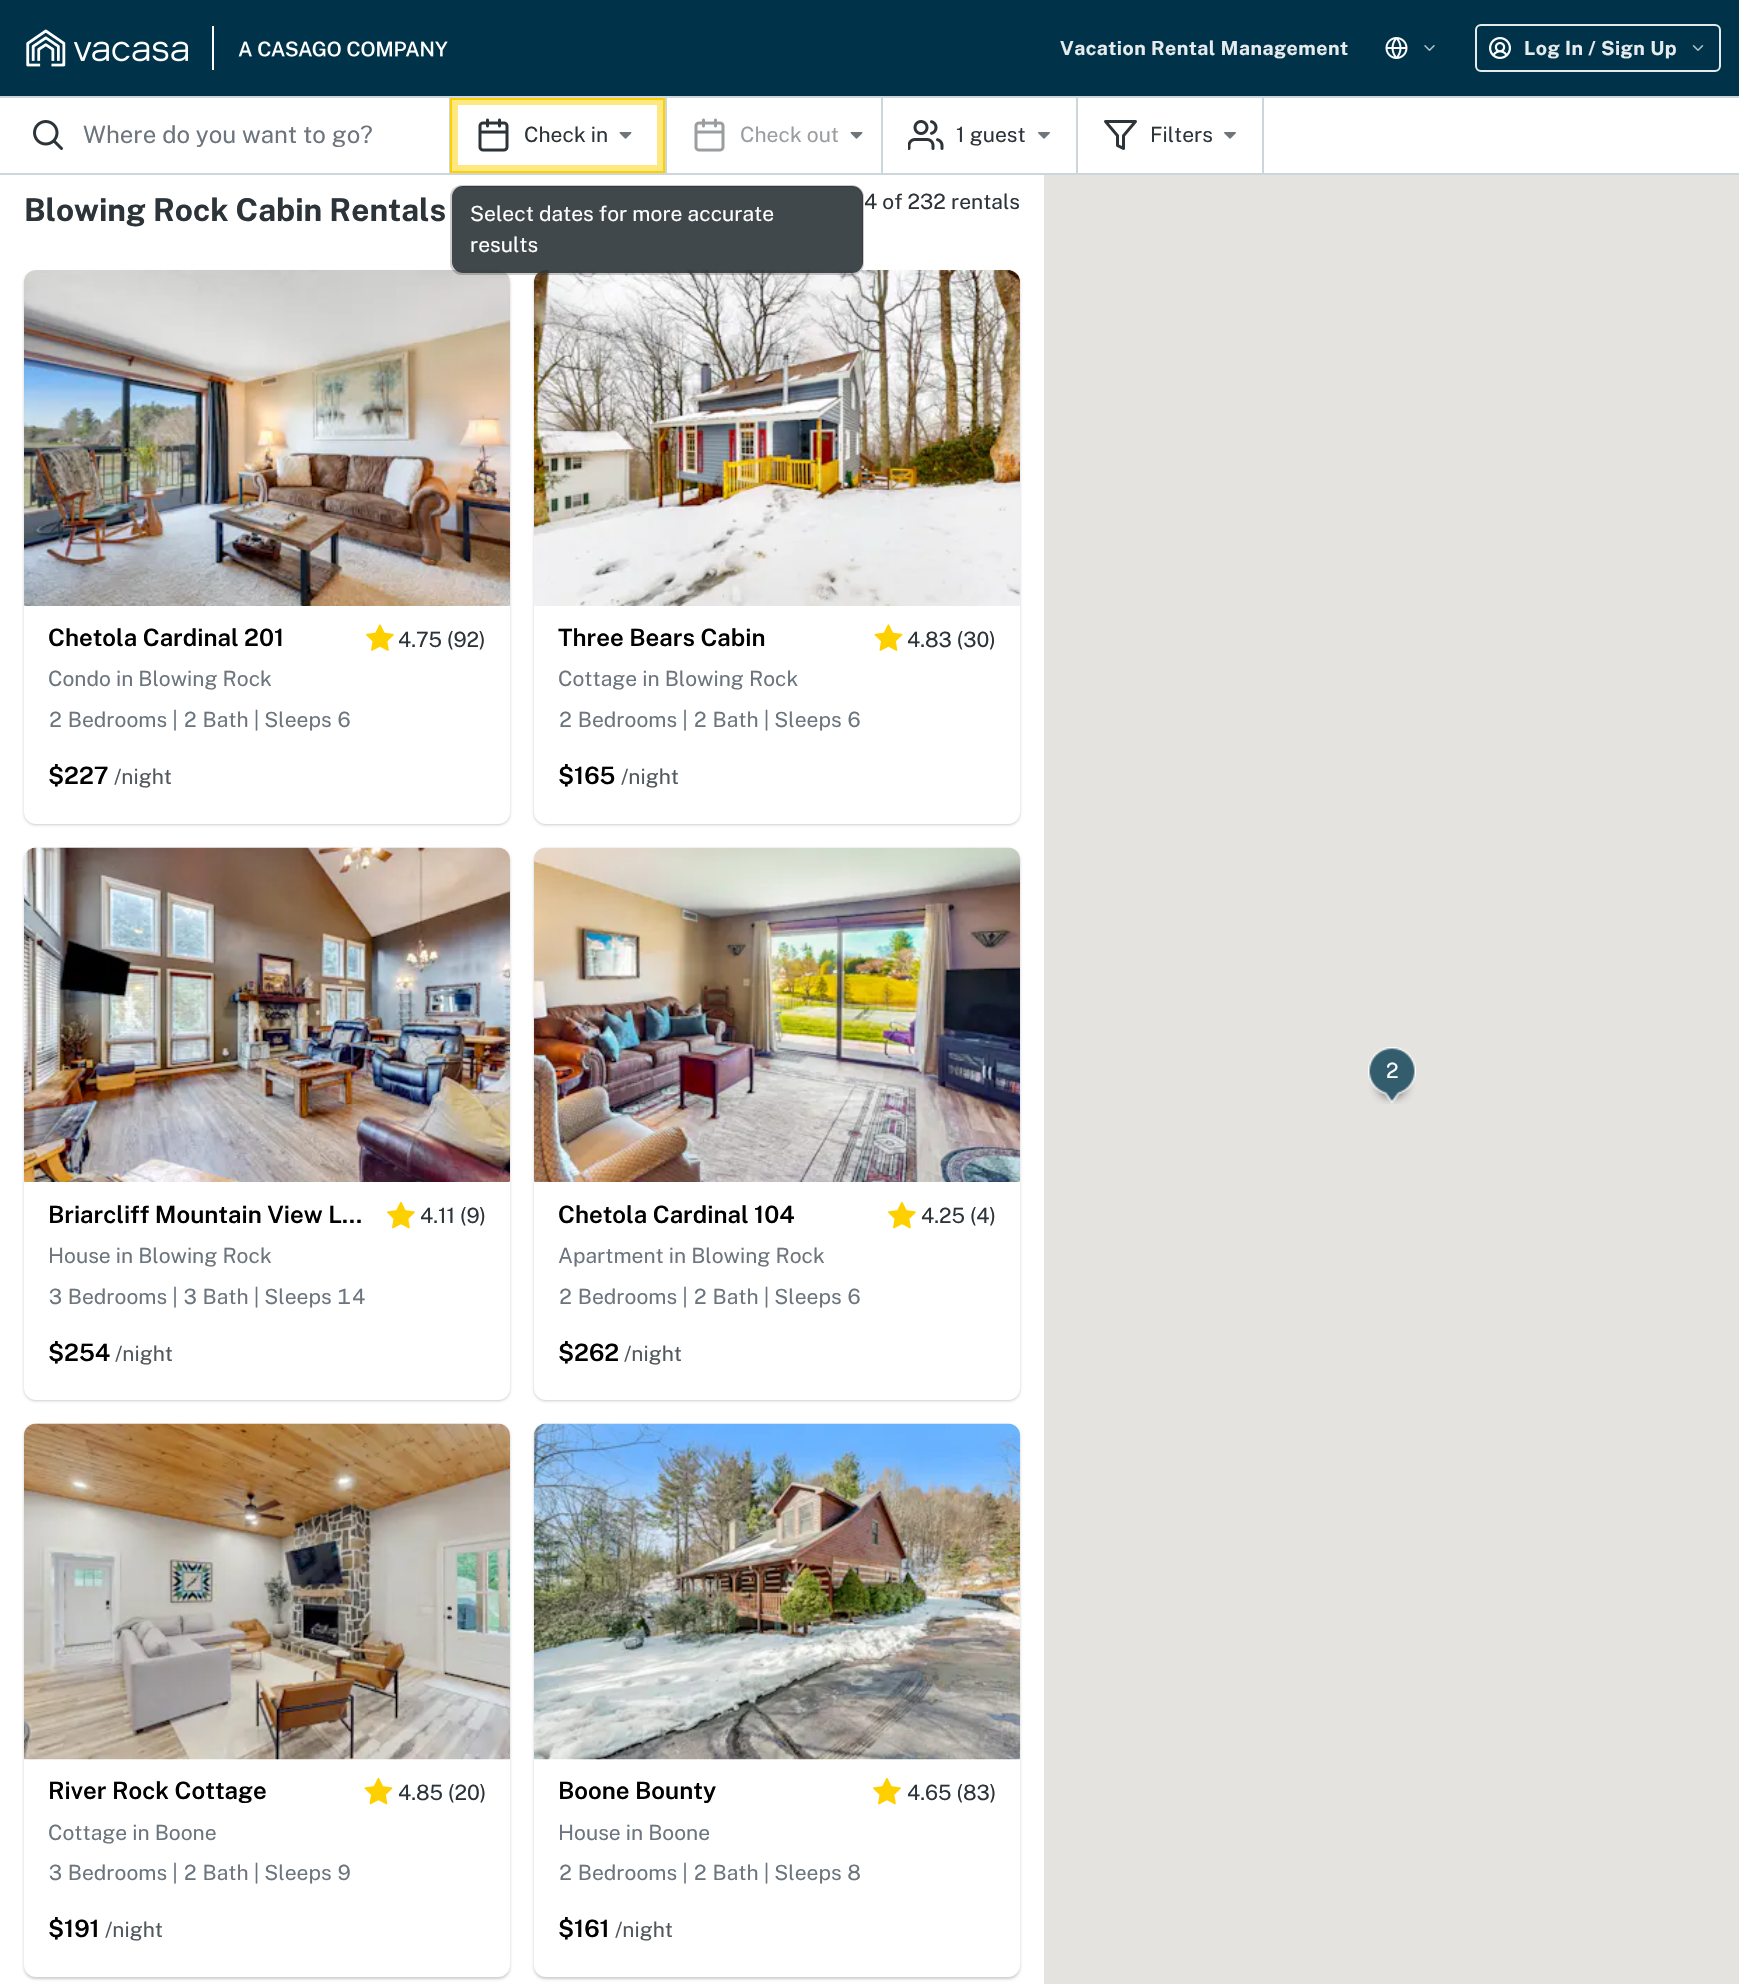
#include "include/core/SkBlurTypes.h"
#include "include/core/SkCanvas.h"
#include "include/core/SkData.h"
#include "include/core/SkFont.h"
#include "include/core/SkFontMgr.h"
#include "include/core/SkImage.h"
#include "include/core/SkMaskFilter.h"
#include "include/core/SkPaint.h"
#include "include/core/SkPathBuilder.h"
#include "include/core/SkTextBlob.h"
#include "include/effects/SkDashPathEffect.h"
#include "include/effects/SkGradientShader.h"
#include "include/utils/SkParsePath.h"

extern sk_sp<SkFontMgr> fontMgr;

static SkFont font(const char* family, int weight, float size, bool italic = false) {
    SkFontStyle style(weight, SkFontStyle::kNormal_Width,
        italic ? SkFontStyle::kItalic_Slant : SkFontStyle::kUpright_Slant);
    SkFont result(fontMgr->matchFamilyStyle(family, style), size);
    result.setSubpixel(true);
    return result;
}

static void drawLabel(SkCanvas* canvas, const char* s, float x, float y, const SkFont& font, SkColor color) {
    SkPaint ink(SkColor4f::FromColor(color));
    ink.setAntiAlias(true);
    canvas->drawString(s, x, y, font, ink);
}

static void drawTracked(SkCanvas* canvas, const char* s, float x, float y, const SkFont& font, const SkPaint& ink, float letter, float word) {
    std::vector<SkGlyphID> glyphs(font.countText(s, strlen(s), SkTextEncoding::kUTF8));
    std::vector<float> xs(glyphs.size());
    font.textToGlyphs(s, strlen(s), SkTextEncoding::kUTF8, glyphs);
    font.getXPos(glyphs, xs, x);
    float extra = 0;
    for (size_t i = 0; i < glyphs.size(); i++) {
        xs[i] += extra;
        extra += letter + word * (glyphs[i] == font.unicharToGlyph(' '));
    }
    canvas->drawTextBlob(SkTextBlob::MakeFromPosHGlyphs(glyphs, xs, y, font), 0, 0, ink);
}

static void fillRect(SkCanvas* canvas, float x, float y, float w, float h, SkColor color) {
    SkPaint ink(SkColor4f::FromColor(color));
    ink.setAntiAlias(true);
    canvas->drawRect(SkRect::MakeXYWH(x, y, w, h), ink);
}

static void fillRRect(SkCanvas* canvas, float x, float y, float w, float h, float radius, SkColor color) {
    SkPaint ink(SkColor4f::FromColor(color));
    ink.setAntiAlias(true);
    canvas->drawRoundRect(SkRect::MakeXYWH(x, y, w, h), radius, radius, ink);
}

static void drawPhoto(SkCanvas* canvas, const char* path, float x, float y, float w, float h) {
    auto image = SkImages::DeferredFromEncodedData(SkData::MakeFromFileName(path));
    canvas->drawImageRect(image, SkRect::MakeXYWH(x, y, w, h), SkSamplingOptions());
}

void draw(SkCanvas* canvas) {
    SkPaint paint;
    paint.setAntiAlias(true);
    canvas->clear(0xFF003349);
    drawPhoto(canvas, "assets/img1.png", 26, 26, 422, 44);
    SkFont font1 = font("Public Sans", 700, 19.5f);
    paint.setColor(0xFFE6EBED);
    drawTracked(canvas, "Vacation Rental Management", 1060, 55, font1, paint, 0.45f, 0);
    drawPhoto(canvas, "assets/img2.png", 1385, 37, 23, 22);
    drawPhoto(canvas, "assets/img3.png", 1424, 45, 11, 6);
    paint.setStroke(true);
    paint.setStrokeWidth(2);
    canvas->drawRoundRect(SkRect::MakeXYWH(1476, 25, 244, 46), 5, 5, paint);
    drawPhoto(canvas, "assets/img4.png", 1489, 37, 22, 22);
    paint.setStroke(false);
    drawTracked(canvas, "Log In / Sign Up", 1524, 55, font1, paint, 0.45f, 0);
    drawPhoto(canvas, "assets/img5.png", 1692, 45, 12, 6);
    fillRect(canvas, 0, 98, 1739, 75, 0xFFFFFFFF);
    fillRect(canvas, 0, 96, 1739, 2, 0xFFCCD6DB);
    fillRect(canvas, 0, 173, 1739, 2, 0xFFCCD6DB);
    fillRect(canvas, 449, 98, 1, 75, 0xFFCCD6DB);
    drawPhoto(canvas, "assets/img6.png", 33, 120, 30, 30);
    SkFont font2 = font("Public Sans", 400, 24);
    drawLabel(canvas, "Where do you want to go?", 83, 143, font2, 0xFF6C757D);
    fillRect(canvas, 665, 98, 2, 75, 0xFFCCD6DB);
    paint.setStroke(true);
    paint.setStrokeWidth(6);
    paint.setColor(0xFFFFE880);
    canvas->drawRect(SkRect::MakeXYWH(455, 102, 205, 66), paint);
    paint.setStrokeWidth(2);
    paint.setColor(0xFFFFD000);
    canvas->drawRect(SkRect::MakeXYWH(451, 99, 213, 73), paint);
    drawPhoto(canvas, "assets/img7.png", 478, 118, 31, 34);
    SkFont font3 = font("Public Sans", 400, 21);
    drawLabel(canvas, "Check in", 524, 142, font3, 0xFF2C3439);
    drawPhoto(canvas, "assets/img8.png", 619, 132, 13, 7);
    fillRect(canvas, 881, 98, 2, 75, 0xFFCCD6DB);
    drawPhoto(canvas, "assets/img9.png", 694, 118, 31, 34);
    drawLabel(canvas, "Check out", 740, 142, font3, 0xFF9B9EA0);
    drawPhoto(canvas, "assets/img8.png", 850, 132, 13, 7);
    fillRect(canvas, 1076, 98, 2, 75, 0xFFCCD6DB);
    drawPhoto(canvas, "assets/img10.png", 908, 120, 36, 30);
    drawLabel(canvas, "1 guest", 956, 142, font3, 0xFF2C3439);
    drawPhoto(canvas, "assets/img11.png", 1038, 132, 12, 7);
    fillRect(canvas, 1262, 98, 2, 75, 0xFFCCD6DB);
    drawPhoto(canvas, "assets/img12.png", 1104, 120, 33, 30);
    drawLabel(canvas, "Filters", 1150, 142, font3, 0xFF2C3439);
    drawPhoto(canvas, "assets/img11.png", 1224, 132, 12, 7);
    fillRect(canvas, 0, 175, 1044, 1809, 0xFFFFFFFF);
    SkFont font4 = font("Public Sans", 700, 31.5f);
    drawLabel(canvas, "Blowing Rock Cabin Rentals", 24, 221, font4, 0xFF2C3439);
    drawLabel(canvas, "4 of 232 rentals", 864, 209, font3, 0xFF2C3439);
    paint.setStroke(false);
    paint.setColor(0x33000000);
    paint.setMaskFilter(SkMaskFilter::MakeBlur(kNormal_SkBlurStyle, 1.5f));
    canvas->drawRoundRect(SkRect::MakeXYWH(24, 272, 486, 553), 12, 12, paint);
    paint.setMaskFilter(nullptr);
    fillRRect(canvas, 24, 270, 486, 554, 12, 0xFFFFFFFF);
    drawPhoto(canvas, "assets/img13.png", 24, 270, 486, 336);
    SkFont font5 = font("Public Sans", 600, 24);
    drawLabel(canvas, "Chetola Cardinal 201", 48, 646, font5, 0xFF000000);
    drawPhoto(canvas, "assets/img14.png", 366, 624, 28, 27);
    drawLabel(canvas, "4.75 (92)", 398, 647, font3, 0xFF2C3439);
    drawLabel(canvas, "Condo in Blowing Rock", 48, 686, font3, 0xFF6C757D);
    SkFont font6 = font("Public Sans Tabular", 400, 21);
    drawLabel(canvas, "2 Bedrooms | 2 Bath | Sleeps 6", 48, 727, font6, 0xFF6C757D);
    drawLabel(canvas, "$227", 48, 784, font5, 0xFF000000);
    drawLabel(canvas, "/night", 114, 784, font3, 0xFF51585C);
    paint.setMaskFilter(SkMaskFilter::MakeBlur(kNormal_SkBlurStyle, 1.5f));
    canvas->drawRoundRect(SkRect::MakeXYWH(534, 272, 486, 553), 12, 12, paint);
    paint.setMaskFilter(nullptr);
    fillRRect(canvas, 534, 270, 486, 554, 12, 0xFFFFFFFF);
    drawPhoto(canvas, "assets/img15.png", 534, 270, 486, 336);
    drawLabel(canvas, "Three Bears Cabin", 558, 646, font5, 0xFF000000);
    drawPhoto(canvas, "assets/img16.png", 874, 624, 29, 27);
    drawLabel(canvas, "4.83 (30)", 907, 647, font3, 0xFF2C3439);
    drawLabel(canvas, "Cottage in Blowing Rock", 558, 686, font3, 0xFF6C757D);
    drawLabel(canvas, "2 Bedrooms | 2 Bath | Sleeps 6", 558, 727, font6, 0xFF6C757D);
    drawLabel(canvas, "$165", 558, 784, font5, 0xFF000000);
    drawLabel(canvas, "/night", 621, 784, font3, 0xFF51585C);
    paint.setMaskFilter(SkMaskFilter::MakeBlur(kNormal_SkBlurStyle, 1.5f));
    canvas->drawRoundRect(SkRect::MakeXYWH(24, 849, 486, 552), 12, 12, paint);
    paint.setMaskFilter(nullptr);
    fillRRect(canvas, 24, 848, 486, 552, 12, 0xFFFFFFFF);
    drawPhoto(canvas, "assets/img17.png", 24, 847, 486, 335);
    drawLabel(canvas, "Briarcliff Mountain View L…", 48, 1223, font5, 0xFF000000);
    drawPhoto(canvas, "assets/img18.png", 387, 1201, 28, 28);
    drawLabel(canvas, "4.11 (9)", 420, 1223, font3, 0xFF2C3439);
    drawLabel(canvas, "House in Blowing Rock", 48, 1263, font3, 0xFF6C757D);
    drawLabel(canvas, "3 Bedrooms | 3 Bath | Sleeps 14", 48, 1304, font6, 0xFF6C757D);
    drawLabel(canvas, "$254", 48, 1361, font5, 0xFF000000);
    drawLabel(canvas, "/night", 115, 1361, font3, 0xFF51585C);
    paint.setMaskFilter(SkMaskFilter::MakeBlur(kNormal_SkBlurStyle, 1.5f));
    canvas->drawRoundRect(SkRect::MakeXYWH(534, 849, 486, 552), 12, 12, paint);
    paint.setMaskFilter(nullptr);
    fillRRect(canvas, 534, 848, 486, 552, 12, 0xFFFFFFFF);
    drawPhoto(canvas, "assets/img19.png", 534, 847, 486, 335);
    drawLabel(canvas, "Chetola Cardinal 104", 558, 1223, font5, 0xFF000000);
    drawPhoto(canvas, "assets/img18.png", 888, 1201, 28, 28);
    drawLabel(canvas, "4.25 (4)", 921, 1223, font3, 0xFF2C3439);
    drawLabel(canvas, "Apartment in Blowing Rock", 558, 1263, font3, 0xFF6C757D);
    drawLabel(canvas, "2 Bedrooms | 2 Bath | Sleeps 6", 558, 1304, font6, 0xFF6C757D);
    drawLabel(canvas, "$262", 558, 1361, font5, 0xFF000000);
    drawLabel(canvas, "/night", 624, 1361, font3, 0xFF51585C);
    paint.setMaskFilter(SkMaskFilter::MakeBlur(kNormal_SkBlurStyle, 1.5f));
    canvas->drawRoundRect(SkRect::MakeXYWH(24, 1425, 486, 554), 12, 12, paint);
    paint.setMaskFilter(nullptr);
    fillRRect(canvas, 24, 1424, 486, 553, 12, 0xFFFFFFFF);
    drawPhoto(canvas, "assets/img20.png", 24, 1423, 486, 337);
    drawLabel(canvas, "River Rock Cottage", 48, 1799, font5, 0xFF000000);
    drawPhoto(canvas, "assets/img21.png", 364, 1777, 29, 28);
    drawLabel(canvas, "4.85 (20)", 398, 1800, font3, 0xFF2C3439);
    drawLabel(canvas, "Cottage in Boone", 48, 1840, font3, 0xFF6C757D);
    drawLabel(canvas, "3 Bedrooms | 2 Bath | Sleeps 9", 48, 1880, font6, 0xFF6C757D);
    drawLabel(canvas, "$191", 48, 1937, font5, 0xFF000000);
    drawLabel(canvas, "/night", 105, 1937, font3, 0xFF51585C);
    paint.setMaskFilter(SkMaskFilter::MakeBlur(kNormal_SkBlurStyle, 1.5f));
    canvas->drawRoundRect(SkRect::MakeXYWH(534, 1425, 486, 554), 12, 12, paint);
    paint.setMaskFilter(nullptr);
    fillRRect(canvas, 534, 1424, 486, 553, 12, 0xFFFFFFFF);
    drawPhoto(canvas, "assets/img22.png", 534, 1423, 486, 337);
    drawLabel(canvas, "Boone Bounty", 558, 1799, font5, 0xFF000000);
    drawPhoto(canvas, "assets/img18.png", 873, 1777, 28, 28);
    drawLabel(canvas, "4.65 (83)", 907, 1800, font3, 0xFF2C3439);
    drawLabel(canvas, "House in Boone", 558, 1840, font3, 0xFF6C757D);
    drawLabel(canvas, "2 Bedrooms | 2 Bath | Sleeps 8", 558, 1880, font6, 0xFF6C757D);
    drawLabel(canvas, "$161", 558, 1937, font5, 0xFF000000);
    drawLabel(canvas, "/night", 615, 1937, font3, 0xFF51585C);
    fillRect(canvas, 1044, 175, 695, 1809, 0xFFE5E3DF);
    drawPhoto(canvas, "assets/img23.png", 1368, 1047, 48, 57);
    drawLabel(canvas, "2", 1386, 1078, font3, 0xFFFFFFFF);
    fillRRect(canvas, 452, 186, 411, 87, 11, 0xE62C3439);
    paint.setStroke(true);
    canvas->drawRoundRect(SkRect::MakeXYWH(451, 186, 412, 88), 11, 11, paint);
    drawLabel(canvas, "Select dates for more accurate", 470, 221, font3, 0xFFFFFFFF);
    drawLabel(canvas, "results", 470, 252, font3, 0xFFFFFFFF);
}
